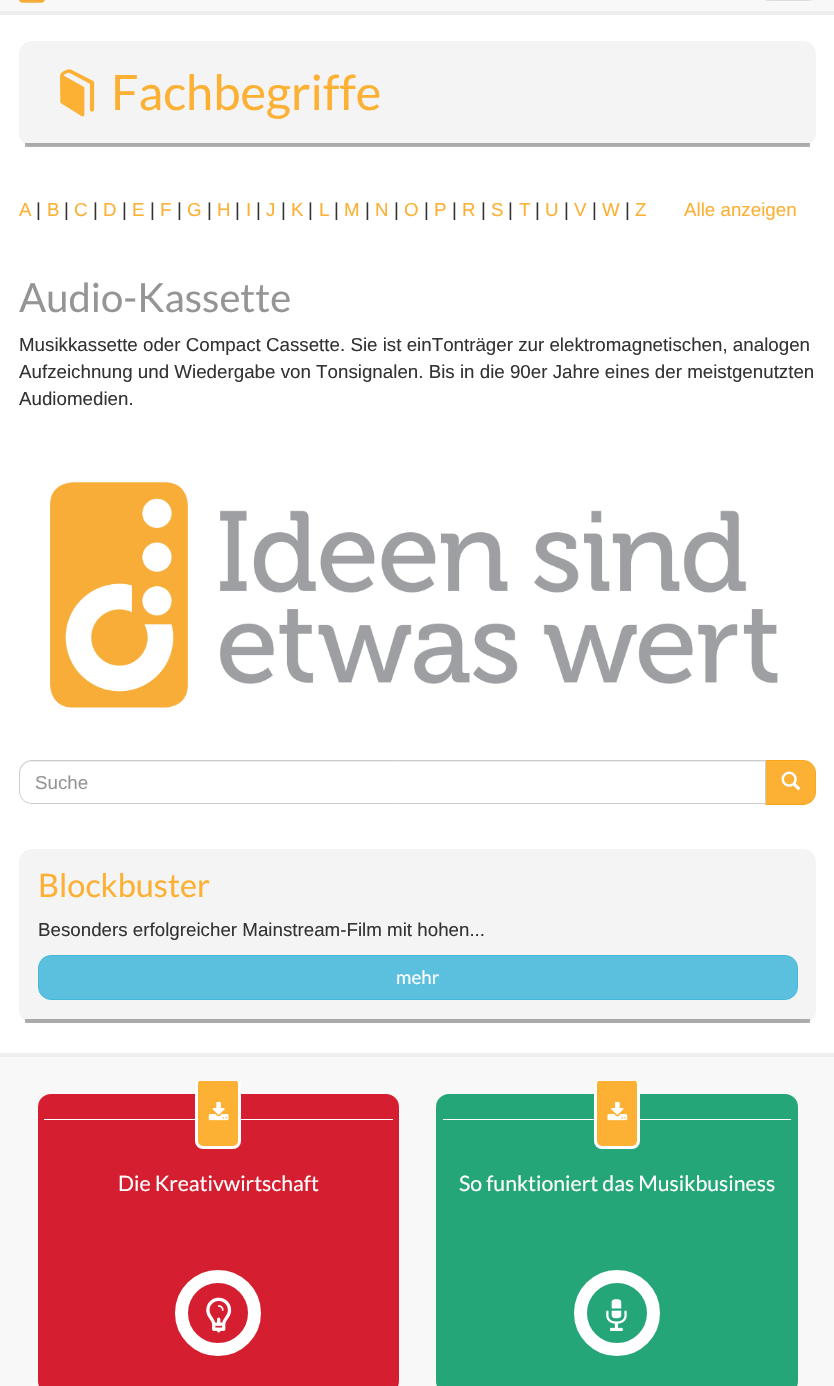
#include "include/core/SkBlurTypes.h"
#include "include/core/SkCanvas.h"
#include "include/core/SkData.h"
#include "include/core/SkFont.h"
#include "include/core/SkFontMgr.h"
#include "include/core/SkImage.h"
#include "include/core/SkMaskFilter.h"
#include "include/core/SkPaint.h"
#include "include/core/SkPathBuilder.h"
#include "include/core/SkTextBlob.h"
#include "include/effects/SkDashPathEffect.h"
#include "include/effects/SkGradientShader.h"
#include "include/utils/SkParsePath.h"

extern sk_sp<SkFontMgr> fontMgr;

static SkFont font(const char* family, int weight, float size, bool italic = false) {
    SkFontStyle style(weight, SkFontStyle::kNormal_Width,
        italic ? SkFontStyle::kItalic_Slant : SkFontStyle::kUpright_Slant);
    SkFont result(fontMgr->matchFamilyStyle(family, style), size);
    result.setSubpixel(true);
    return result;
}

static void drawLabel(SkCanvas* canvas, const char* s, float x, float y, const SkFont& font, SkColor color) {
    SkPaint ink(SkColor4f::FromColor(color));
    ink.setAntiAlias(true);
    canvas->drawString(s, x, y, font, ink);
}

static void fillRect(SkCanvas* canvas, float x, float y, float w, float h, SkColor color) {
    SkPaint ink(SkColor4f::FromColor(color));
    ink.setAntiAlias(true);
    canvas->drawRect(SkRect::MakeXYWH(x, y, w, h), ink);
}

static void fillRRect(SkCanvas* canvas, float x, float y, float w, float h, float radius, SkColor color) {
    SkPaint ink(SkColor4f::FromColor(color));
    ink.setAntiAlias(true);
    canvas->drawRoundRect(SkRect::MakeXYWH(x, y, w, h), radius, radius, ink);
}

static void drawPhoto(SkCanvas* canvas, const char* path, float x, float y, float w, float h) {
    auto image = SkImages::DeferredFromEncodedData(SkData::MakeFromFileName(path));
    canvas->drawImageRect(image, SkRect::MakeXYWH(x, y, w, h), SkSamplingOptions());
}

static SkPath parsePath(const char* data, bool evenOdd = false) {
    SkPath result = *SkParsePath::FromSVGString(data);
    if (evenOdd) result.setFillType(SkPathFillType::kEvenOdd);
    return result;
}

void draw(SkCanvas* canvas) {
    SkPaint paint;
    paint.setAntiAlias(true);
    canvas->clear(0xFFFFFFFF);
    fillRect(canvas, 0, 0, 834, 11, 0xFFF8F8F8);
    fillRect(canvas, 0, 11, 834, 4, 0xFFEEEEEE);
    paint.setStroke(true);
    paint.setStrokeWidth(1);
    paint.setColor(0xFFDDDDDD);
    canvas->drawRoundRect(SkRect::MakeXYWH(761.5f, -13.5f, 54, 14), 12.5f, 12.5f, paint);
    drawPhoto(canvas, "assets/img1.png", 18, 0, 27, 3);
    fillRRect(canvas, 19, 41, 797, 105, 13, 0xFFF4F4F4);
    fillRect(canvas, 25, 143, 785, 4, 0x4D000000);
    drawPhoto(canvas, "assets/img2.png", 60, 69, 35, 48);
    SkFont font1 = font("Lato", 400, 48.75f);
    drawLabel(canvas, "Fachbegriffe", 111, 110, font1, 0xFFFCB034);
    SkFont font2 = font("Liberation Sans", 400, 18.75f);
    drawLabel(canvas, "A", 19, 216, font2, 0xFFFCB034);
    drawLabel(canvas, "|", 36, 216, font2, 0xFF333333);
    drawLabel(canvas, "B", 47, 216, font2, 0xFFFCB034);
    drawLabel(canvas, "|", 64, 216, font2, 0xFF333333);
    drawLabel(canvas, "C", 74, 216, font2, 0xFFFCB034);
    drawLabel(canvas, "|", 93, 216, font2, 0xFF333333);
    drawLabel(canvas, "D", 103, 216, font2, 0xFFFCB034);
    drawLabel(canvas, "|", 122, 216, font2, 0xFF333333);
    drawLabel(canvas, "E", 132, 216, font2, 0xFFFCB034);
    drawLabel(canvas, "|", 150, 216, font2, 0xFF333333);
    drawLabel(canvas, "F", 160, 216, font2, 0xFFFCB034);
    drawLabel(canvas, "|", 177, 216, font2, 0xFF333333);
    drawLabel(canvas, "G", 187, 216, font2, 0xFFFCB034);
    drawLabel(canvas, "|", 207, 216, font2, 0xFF333333);
    drawLabel(canvas, "H", 217, 216, font2, 0xFFFCB034);
    drawLabel(canvas, "|", 235, 216, font2, 0xFF333333);
    drawLabel(canvas, "I", 246, 216, font2, 0xFFFCB034);
    drawLabel(canvas, "|", 256, 216, font2, 0xFF333333);
    drawLabel(canvas, "J", 266, 216, font2, 0xFFFCB034);
    drawLabel(canvas, "|", 281, 216, font2, 0xFF333333);
    drawLabel(canvas, "K", 291, 216, font2, 0xFFFCB034);
    drawLabel(canvas, "|", 308, 216, font2, 0xFF333333);
    drawLabel(canvas, "L", 319, 216, font2, 0xFFFCB034);
    drawLabel(canvas, "|", 334, 216, font2, 0xFF333333);
    drawLabel(canvas, "M", 344, 216, font2, 0xFFFCB034);
    drawLabel(canvas, "|", 365, 216, font2, 0xFF333333);
    drawLabel(canvas, "N", 375, 216, font2, 0xFFFCB034);
    drawLabel(canvas, "|", 394, 216, font2, 0xFF333333);
    drawLabel(canvas, "O", 404, 216, font2, 0xFFFCB034);
    drawLabel(canvas, "|", 424, 216, font2, 0xFF333333);
    drawLabel(canvas, "P", 434, 216, font2, 0xFFFCB034);
    drawLabel(canvas, "|", 452, 216, font2, 0xFF333333);
    drawLabel(canvas, "R", 462, 216, font2, 0xFFFCB034);
    drawLabel(canvas, "|", 481, 216, font2, 0xFF333333);
    drawLabel(canvas, "S", 491, 216, font2, 0xFFFCB034);
    drawLabel(canvas, "|", 508, 216, font2, 0xFF333333);
    drawLabel(canvas, "T", 519, 216, font2, 0xFFFCB034);
    drawLabel(canvas, "|", 535, 216, font2, 0xFF333333);
    drawLabel(canvas, "U", 545, 216, font2, 0xFFFCB034);
    drawLabel(canvas, "|", 564, 216, font2, 0xFF333333);
    drawLabel(canvas, "V", 574, 216, font2, 0xFFFCB034);
    drawLabel(canvas, "|", 592, 216, font2, 0xFF333333);
    drawLabel(canvas, "W", 602, 216, font2, 0xFFFCB034);
    drawLabel(canvas, "|", 625, 216, font2, 0xFF333333);
    drawLabel(canvas, "Z", 635, 216, font2, 0xFFFCB034);
    drawLabel(canvas, "Alle anzeigen", 684, 216, font2, 0xFFFCB034);
    SkFont font3 = font("Lato", 400, 40);
    drawLabel(canvas, "Audio-Kassette", 19, 312, font3, 0xFF959595);
    drawLabel(canvas, "Musikkassette oder Compact Cassette. Sie ist einTonträger zur elektromagnetischen, analogen", 19, 351, font2, 0xFF333333);
    drawLabel(canvas, "Aufzeichnung und Wiedergabe von Tonsignalen. Bis in die 90er Jahre eines der meistgenutzten", 19, 378, font2, 0xFF333333);
    drawLabel(canvas, "Audiomedien.", 19, 405, font2, 0xFF333333);
    drawPhoto(canvas, "assets/img3.png", 50, 482, 728, 226);
    paint.setStroke(false);
    paint.setColor(0xFFFCB034);
    canvas->drawPath(parsePath("M765.5 760.5H803C810 760.5 815.5 766 815.5 773V792C815.5 799 810 804.5 803 804.5H765.5Z"), paint);
    paint.setStroke(true);
    paint.setColor(0xFFFCA61B);
    canvas->drawPath(parsePath("M765.5 760.5H803C810 760.5 815.5 766 815.5 773V792C815.5 799 810 804.5 803 804.5H765.5Z"), paint);
    paint.setStroke(false);
    paint.setColor(0xFFFFFFFF);
    canvas->drawPath(parsePath("M32 760H766V804H32C25 804 19 798 19 791V773C19 766 25 760 32 760Z"), paint);
    paint.setColor(0xFFECECEC);
    canvas->drawPath(parsePath("M31 762H765V761H31C25 761 20 766 20 772V774C20 768 25 762 31 762Z"), paint);
    paint.setStroke(true);
    paint.setColor(0xFFCCCCCC);
    canvas->drawPath(parsePath("M32 760.5H765.5V803.5H32C25 803.5 19.5 798 19.5 791V773C19.5 766 25 760.5 32 760.5Z"), paint);
    drawLabel(canvas, "Suche", 35, 789, font2, 0xFF959595);
    drawPhoto(canvas, "assets/img4.png", 781, 771, 20, 20);
    fillRRect(canvas, 19, 849, 797, 174, 13, 0xFFF4F4F4);
    fillRect(canvas, 25, 1019, 785, 4, 0x4D000000);
    SkFont font4 = font("Lato", 400, 32.5f);
    drawLabel(canvas, "Blockbuster", 38, 897, font4, 0xFFFCB034);
    drawLabel(canvas, "Besonders erfolgreicher Mainstream-Film mit hohen...", 38, 936, font2, 0xFF333333);
    paint.setStroke(false);
    paint.setColor(0xFF5BC0DE);
    canvas->drawRoundRect(SkRect::MakeXYWH(38.5f, 955.5f, 759, 44), 12.5f, 12.5f, paint);
    paint.setStroke(true);
    paint.setColor(0xFF46B8DA);
    canvas->drawRoundRect(SkRect::MakeXYWH(38.5f, 955.5f, 759, 44), 12.5f, 12.5f, paint);
    SkFont font5 = font("Lato", 400, 18.75f);
    drawLabel(canvas, "mehr", 396, 984, font5, 0xFFFFFFFF);
    fillRect(canvas, 0, 1057, 834, 329, 0xFFF8F8F8);
    fillRect(canvas, 0, 1053, 834, 4, 0xFFEEEEEE);
    fillRRect(canvas, 38, 1094, 361, 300, 13, 0xFFD51E30);
    fillRect(canvas, 44, 1119, 349, 1, 0xFFFFFFFF);
    canvas->save();
    canvas->clipRect(SkRect::MakeXYWH(19, 1081, 797, 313));
    paint.setStroke(false);
    paint.setColor(0xFFFCB034);
    canvas->drawRoundRect(SkRect::MakeXYWH(196.5f, 1077.5f, 43, 70), 6.5f, 6.5f, paint);
    paint.setStroke(true);
    paint.setStrokeWidth(3);
    paint.setColor(0xFFFFFFFF);
    canvas->drawRoundRect(SkRect::MakeXYWH(196.5f, 1077.5f, 43, 70), 6.5f, 6.5f, paint);
    canvas->restore();
    drawPhoto(canvas, "assets/img5.png", 208, 1101, 21, 20);
    SkFont font6 = font("Lato", 400, 21.25f);
    drawLabel(canvas, "Die Kreativwirtschaft", 118, 1191, font6, 0xFFFFFFFF);
    paint.setStrokeWidth(13);
    canvas->drawCircle(218, 1313, 36.5f, paint);
    drawPhoto(canvas, "assets/img6.png", 206, 1297, 26, 36);
    fillRRect(canvas, 436, 1094, 362, 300, 13, 0xFF25A679);
    fillRect(canvas, 443, 1119, 348, 1, 0xFFFFFFFF);
    canvas->save();
    canvas->clipRect(SkRect::MakeXYWH(19, 1081, 797, 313));
    paint.setStroke(false);
    paint.setColor(0xFFFCB034);
    canvas->drawRoundRect(SkRect::MakeXYWH(595.5f, 1077.5f, 43, 70), 6.5f, 6.5f, paint);
    paint.setStroke(true);
    paint.setStrokeWidth(3);
    paint.setColor(0xFFFFFFFF);
    canvas->drawRoundRect(SkRect::MakeXYWH(595.5f, 1077.5f, 43, 70), 6.5f, 6.5f, paint);
    canvas->restore();
    drawPhoto(canvas, "assets/img7.png", 607, 1101, 21, 20);
    drawLabel(canvas, "So funktioniert das Musikbusiness", 459, 1191, font6, 0xFFFFFFFF);
    paint.setStrokeWidth(13);
    canvas->drawCircle(617, 1313, 36.5f, paint);
    drawPhoto(canvas, "assets/img8.png", 606, 1299, 21, 32);
}
